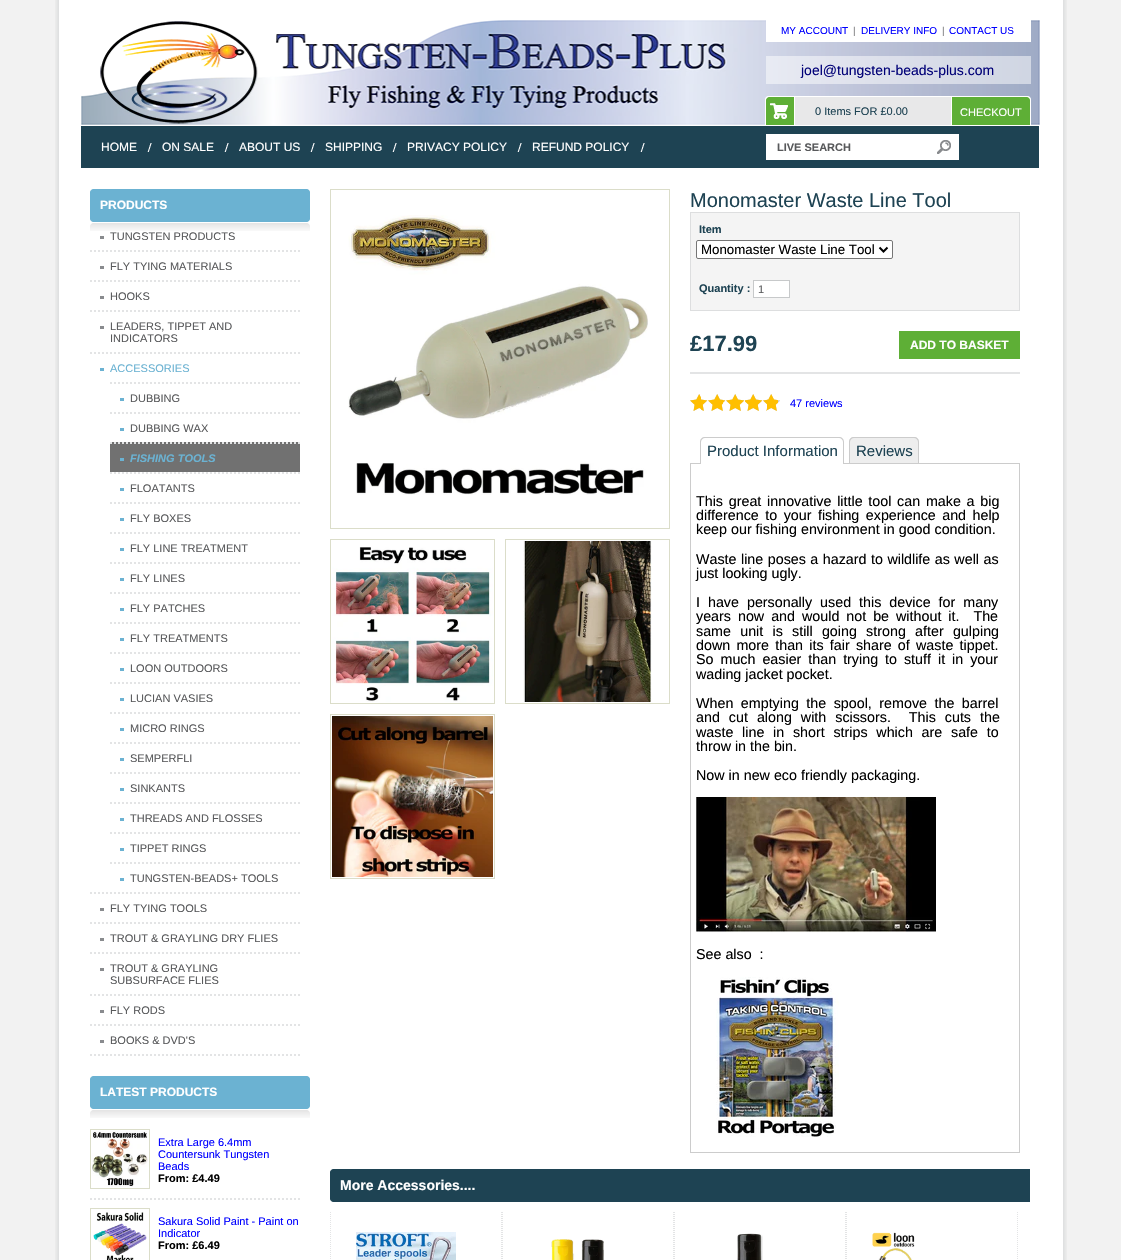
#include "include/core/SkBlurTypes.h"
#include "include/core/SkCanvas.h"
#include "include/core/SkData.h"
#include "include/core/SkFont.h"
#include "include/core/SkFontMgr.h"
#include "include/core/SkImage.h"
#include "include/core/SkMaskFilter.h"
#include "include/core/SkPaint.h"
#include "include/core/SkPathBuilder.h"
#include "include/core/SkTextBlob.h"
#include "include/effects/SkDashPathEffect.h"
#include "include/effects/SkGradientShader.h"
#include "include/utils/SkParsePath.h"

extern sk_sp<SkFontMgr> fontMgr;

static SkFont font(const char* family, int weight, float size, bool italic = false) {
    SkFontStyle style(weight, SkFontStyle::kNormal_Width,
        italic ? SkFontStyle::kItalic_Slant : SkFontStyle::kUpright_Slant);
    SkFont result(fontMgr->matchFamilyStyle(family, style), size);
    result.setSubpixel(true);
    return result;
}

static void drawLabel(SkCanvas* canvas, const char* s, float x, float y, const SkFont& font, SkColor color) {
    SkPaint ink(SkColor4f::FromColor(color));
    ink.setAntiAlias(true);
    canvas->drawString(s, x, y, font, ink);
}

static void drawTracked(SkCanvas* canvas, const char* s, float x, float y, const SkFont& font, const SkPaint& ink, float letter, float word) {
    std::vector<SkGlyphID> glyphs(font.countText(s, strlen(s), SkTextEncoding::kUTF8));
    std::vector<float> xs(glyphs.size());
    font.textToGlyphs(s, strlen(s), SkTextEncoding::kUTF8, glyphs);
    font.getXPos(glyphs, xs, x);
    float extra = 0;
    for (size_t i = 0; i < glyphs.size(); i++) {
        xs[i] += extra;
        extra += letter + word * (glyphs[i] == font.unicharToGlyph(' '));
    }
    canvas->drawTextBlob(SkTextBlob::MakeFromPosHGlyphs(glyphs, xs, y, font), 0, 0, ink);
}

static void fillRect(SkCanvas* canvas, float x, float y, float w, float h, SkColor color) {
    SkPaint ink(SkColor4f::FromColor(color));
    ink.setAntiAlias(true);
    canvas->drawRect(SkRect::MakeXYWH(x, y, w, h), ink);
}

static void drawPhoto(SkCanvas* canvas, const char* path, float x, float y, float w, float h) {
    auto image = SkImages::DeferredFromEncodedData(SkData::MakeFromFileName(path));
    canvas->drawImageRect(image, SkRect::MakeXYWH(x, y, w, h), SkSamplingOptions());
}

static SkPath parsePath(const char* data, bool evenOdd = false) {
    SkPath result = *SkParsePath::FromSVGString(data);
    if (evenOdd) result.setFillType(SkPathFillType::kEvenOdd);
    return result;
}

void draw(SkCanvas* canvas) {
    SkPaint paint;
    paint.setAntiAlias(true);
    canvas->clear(0xFFF2F2F2);
    drawPhoto(canvas, "assets/img1.png", 55, 0, 1012, 1260);
    drawPhoto(canvas, "assets/img2.png", 81, 20, 959, 105);
    fillRect(canvas, 766, 20, 265, 22, 0xFFFFFFFF);
    SkFont font1 = font("Liberation Sans", 400, 10);
    drawLabel(canvas, "MY ACCOUNT", 781, 34, font1, 0xFF0000FF);
    drawLabel(canvas, "|", 853, 34, font1, 0xFF7E7E7F);
    drawLabel(canvas, "DELIVERY INFO", 861, 34, font1, 0xFF0000FF);
    drawLabel(canvas, "|", 942, 34, font1, 0xFF7E7E7F);
    drawLabel(canvas, "CONTACT US", 949, 34, font1, 0xFF0000FF);
    fillRect(canvas, 766, 56, 265, 28, 0x80FFFFFF);
    SkFont font2 = font("Liberation Sans", 400, 14);
    drawLabel(canvas, "joel@tungsten-beads-plus.com", 801, 75, font2, 0xFF000077);
    drawPhoto(canvas, "assets/img3.png", 765, 96, 266, 29);
    SkFont font3 = font("Liberation Sans", 400, 11);
    drawLabel(canvas, "0 Items FOR £0.00", 815, 115, font3, 0xFF1E4353);
    drawLabel(canvas, "CHECKOUT", 960, 116, font3, 0xFFFFFFFF);
    fillRect(canvas, 81, 126, 958, 42, 0xFF1E4353);
    drawPhoto(canvas, "assets/img4.png", 147, 143, 5, 9);
    SkFont font4 = font("Liberation Sans", 400, 12);
    drawLabel(canvas, "HOME", 101, 151, font4, 0xFFFFFFFF);
    drawPhoto(canvas, "assets/img4.png", 224, 143, 5, 9);
    drawLabel(canvas, "ON SALE", 162, 151, font4, 0xFFFFFFFF);
    drawPhoto(canvas, "assets/img4.png", 310, 143, 5, 9);
    drawLabel(canvas, "ABOUT US", 239, 151, font4, 0xFFFFFFFF);
    drawPhoto(canvas, "assets/img4.png", 392, 143, 5, 9);
    drawLabel(canvas, "SHIPPING", 325, 151, font4, 0xFFFFFFFF);
    drawPhoto(canvas, "assets/img4.png", 517, 143, 5, 9);
    drawLabel(canvas, "PRIVACY POLICY", 407, 151, font4, 0xFFFFFFFF);
    drawPhoto(canvas, "assets/img4.png", 640, 143, 5, 9);
    drawLabel(canvas, "REFUND POLICY", 532, 151, font4, 0xFFFFFFFF);
    fillRect(canvas, 766, 134, 193, 26, 0xFFFFFFFF);
    SkFont font5 = font("Liberation Sans", 700, 11);
    drawLabel(canvas, "LIVE SEARCH", 777, 151, font5, 0xFF58595B);
    drawPhoto(canvas, "assets/img5.png", 937, 140, 14, 14);
    drawPhoto(canvas, "assets/img6.png", 90, 189, 211, 42);
    drawPhoto(canvas, "assets/img7.png", 301, 189, 9, 42);
    SkFont font6 = font("Liberation Sans", 700, 12);
    drawLabel(canvas, "PRODUCTS", 100, 209, font6, 0xFFFFFFFF);
    paint.setStroke(true);
    paint.setStrokeWidth(2);
    paint.setColor(0xFFE3E4E5);
    paint.setPathEffect(SkDashPathEffect::Make({{2, 2}}, 0));
    canvas->drawPath(parsePath("M90 251H300"), paint);
    paint.setPathEffect(nullptr);
    fillRect(canvas, 100, 236, 4, 3, 0xFF898B8E);
    drawLabel(canvas, "TUNGSTEN PRODUCTS", 110, 240, font3, 0xFF58595B);
    paint.setPathEffect(SkDashPathEffect::Make({{2, 2}}, 0));
    canvas->drawPath(parsePath("M90 281H300"), paint);
    paint.setPathEffect(nullptr);
    fillRect(canvas, 100, 266, 4, 3, 0xFF898B8E);
    drawLabel(canvas, "FLY TYING MATERIALS", 110, 270, font3, 0xFF58595B);
    paint.setPathEffect(SkDashPathEffect::Make({{2, 2}}, 0));
    canvas->drawPath(parsePath("M90 311H300"), paint);
    paint.setPathEffect(nullptr);
    fillRect(canvas, 100, 296, 4, 3, 0xFF898B8E);
    drawLabel(canvas, "HOOKS", 110, 300, font3, 0xFF58595B);
    paint.setPathEffect(SkDashPathEffect::Make({{2, 2}}, 0));
    canvas->drawPath(parsePath("M90 353H300"), paint);
    paint.setPathEffect(nullptr);
    fillRect(canvas, 100, 326, 4, 3, 0xFF898B8E);
    drawLabel(canvas, "LEADERS, TIPPET AND", 110, 330, font3, 0xFF58595B);
    drawLabel(canvas, "INDICATORS", 110, 342, font3, 0xFF58595B);
    paint.setPathEffect(SkDashPathEffect::Make({{2, 2}}, 0));
    canvas->drawPath(parsePath("M90 893H300"), paint);
    paint.setPathEffect(nullptr);
    fillRect(canvas, 100, 368, 4, 3, 0xFF6BB2D2);
    drawLabel(canvas, "ACCESSORIES", 110, 372, font3, 0xFF6BB2D2);
    paint.setPathEffect(SkDashPathEffect::Make({{2, 2}}, 0));
    canvas->drawPath(parsePath("M110 383H300"), paint);
    paint.setPathEffect(nullptr);
    fillRect(canvas, 120, 398, 4, 3, 0xFF6BB2D2);
    drawLabel(canvas, "DUBBING", 130, 402, font3, 0xFF58595B);
    paint.setPathEffect(SkDashPathEffect::Make({{2, 2}}, 0));
    canvas->drawPath(parsePath("M110 413H300"), paint);
    paint.setPathEffect(nullptr);
    fillRect(canvas, 120, 428, 4, 3, 0xFF6BB2D2);
    drawLabel(canvas, "DUBBING WAX", 130, 432, font3, 0xFF58595B);
    fillRect(canvas, 110, 442, 190, 30, 0xFF717171);
    paint.setPathEffect(SkDashPathEffect::Make({{2, 2}}, 0));
    canvas->drawPath(parsePath("M110 443H300"), paint);
    paint.setPathEffect(nullptr);
    fillRect(canvas, 120, 458, 4, 3, 0xFF6BB2D2);
    SkFont font7 = font("Liberation Sans", 700, 11, true);
    drawLabel(canvas, "FISHING TOOLS", 130, 462, font7, 0xFF6BB2D2);
    paint.setPathEffect(SkDashPathEffect::Make({{2, 2}}, 0));
    canvas->drawPath(parsePath("M110 473H300"), paint);
    paint.setPathEffect(nullptr);
    fillRect(canvas, 120, 488, 4, 3, 0xFF6BB2D2);
    drawLabel(canvas, "FLOATANTS", 130, 492, font3, 0xFF58595B);
    paint.setPathEffect(SkDashPathEffect::Make({{2, 2}}, 0));
    canvas->drawPath(parsePath("M110 503H300"), paint);
    paint.setPathEffect(nullptr);
    fillRect(canvas, 120, 518, 4, 3, 0xFF6BB2D2);
    drawLabel(canvas, "FLY BOXES", 130, 522, font3, 0xFF58595B);
    paint.setPathEffect(SkDashPathEffect::Make({{2, 2}}, 0));
    canvas->drawPath(parsePath("M110 533H300"), paint);
    paint.setPathEffect(nullptr);
    fillRect(canvas, 120, 548, 4, 3, 0xFF6BB2D2);
    drawLabel(canvas, "FLY LINE TREATMENT", 130, 552, font3, 0xFF58595B);
    paint.setPathEffect(SkDashPathEffect::Make({{2, 2}}, 0));
    canvas->drawPath(parsePath("M110 563H300"), paint);
    paint.setPathEffect(nullptr);
    fillRect(canvas, 120, 578, 4, 3, 0xFF6BB2D2);
    drawLabel(canvas, "FLY LINES", 130, 582, font3, 0xFF58595B);
    paint.setPathEffect(SkDashPathEffect::Make({{2, 2}}, 0));
    canvas->drawPath(parsePath("M110 593H300"), paint);
    paint.setPathEffect(nullptr);
    fillRect(canvas, 120, 608, 4, 3, 0xFF6BB2D2);
    drawLabel(canvas, "FLY PATCHES", 130, 612, font3, 0xFF58595B);
    paint.setPathEffect(SkDashPathEffect::Make({{2, 2}}, 0));
    canvas->drawPath(parsePath("M110 623H300"), paint);
    paint.setPathEffect(nullptr);
    fillRect(canvas, 120, 638, 4, 3, 0xFF6BB2D2);
    drawLabel(canvas, "FLY TREATMENTS", 130, 642, font3, 0xFF58595B);
    paint.setPathEffect(SkDashPathEffect::Make({{2, 2}}, 0));
    canvas->drawPath(parsePath("M110 653H300"), paint);
    paint.setPathEffect(nullptr);
    fillRect(canvas, 120, 668, 4, 3, 0xFF6BB2D2);
    drawLabel(canvas, "LOON OUTDOORS", 130, 672, font3, 0xFF58595B);
    paint.setPathEffect(SkDashPathEffect::Make({{2, 2}}, 0));
    canvas->drawPath(parsePath("M110 683H300"), paint);
    paint.setPathEffect(nullptr);
    fillRect(canvas, 120, 698, 4, 3, 0xFF6BB2D2);
    drawLabel(canvas, "LUCIAN VASIES", 130, 702, font3, 0xFF58595B);
    paint.setPathEffect(SkDashPathEffect::Make({{2, 2}}, 0));
    canvas->drawPath(parsePath("M110 713H300"), paint);
    paint.setPathEffect(nullptr);
    fillRect(canvas, 120, 728, 4, 3, 0xFF6BB2D2);
    drawLabel(canvas, "MICRO RINGS", 130, 732, font3, 0xFF58595B);
    paint.setPathEffect(SkDashPathEffect::Make({{2, 2}}, 0));
    canvas->drawPath(parsePath("M110 743H300"), paint);
    paint.setPathEffect(nullptr);
    fillRect(canvas, 120, 758, 4, 3, 0xFF6BB2D2);
    drawLabel(canvas, "SEMPERFLI", 130, 762, font3, 0xFF58595B);
    paint.setPathEffect(SkDashPathEffect::Make({{2, 2}}, 0));
    canvas->drawPath(parsePath("M110 773H300"), paint);
    paint.setPathEffect(nullptr);
    fillRect(canvas, 120, 788, 4, 3, 0xFF6BB2D2);
    drawLabel(canvas, "SINKANTS", 130, 792, font3, 0xFF58595B);
    paint.setPathEffect(SkDashPathEffect::Make({{2, 2}}, 0));
    canvas->drawPath(parsePath("M110 803H300"), paint);
    paint.setPathEffect(nullptr);
    fillRect(canvas, 120, 818, 4, 3, 0xFF6BB2D2);
    drawLabel(canvas, "THREADS AND FLOSSES", 130, 822, font3, 0xFF58595B);
    paint.setPathEffect(SkDashPathEffect::Make({{2, 2}}, 0));
    canvas->drawPath(parsePath("M110 833H300"), paint);
    paint.setPathEffect(nullptr);
    fillRect(canvas, 120, 848, 4, 3, 0xFF6BB2D2);
    drawLabel(canvas, "TIPPET RINGS", 130, 852, font3, 0xFF58595B);
    paint.setPathEffect(SkDashPathEffect::Make({{2, 2}}, 0));
    canvas->drawPath(parsePath("M110 863H300"), paint);
    paint.setPathEffect(nullptr);
    fillRect(canvas, 120, 878, 4, 3, 0xFF6BB2D2);
    drawLabel(canvas, "TUNGSTEN-BEADS+ TOOLS", 130, 882, font3, 0xFF58595B);
    paint.setPathEffect(SkDashPathEffect::Make({{2, 2}}, 0));
    canvas->drawPath(parsePath("M90 923H300"), paint);
    paint.setPathEffect(nullptr);
    fillRect(canvas, 100, 908, 4, 3, 0xFF898B8E);
    drawLabel(canvas, "FLY TYING TOOLS", 110, 912, font3, 0xFF58595B);
    paint.setPathEffect(SkDashPathEffect::Make({{2, 2}}, 0));
    canvas->drawPath(parsePath("M90 953H300"), paint);
    paint.setPathEffect(nullptr);
    fillRect(canvas, 100, 938, 4, 3, 0xFF898B8E);
    drawLabel(canvas, "TROUT & GRAYLING DRY FLIES", 110, 942, font3, 0xFF58595B);
    paint.setPathEffect(SkDashPathEffect::Make({{2, 2}}, 0));
    canvas->drawPath(parsePath("M90 995H300"), paint);
    paint.setPathEffect(nullptr);
    fillRect(canvas, 100, 968, 4, 3, 0xFF898B8E);
    drawLabel(canvas, "TROUT & GRAYLING", 110, 972, font3, 0xFF58595B);
    drawLabel(canvas, "SUBSURFACE FLIES", 110, 984, font3, 0xFF58595B);
    paint.setPathEffect(SkDashPathEffect::Make({{2, 2}}, 0));
    canvas->drawPath(parsePath("M90 1025H300"), paint);
    paint.setPathEffect(nullptr);
    fillRect(canvas, 100, 1010, 4, 3, 0xFF898B8E);
    drawLabel(canvas, "FLY RODS", 110, 1014, font3, 0xFF58595B);
    paint.setPathEffect(SkDashPathEffect::Make({{2, 2}}, 0));
    canvas->drawPath(parsePath("M90 1055H300"), paint);
    paint.setPathEffect(nullptr);
    fillRect(canvas, 100, 1040, 4, 3, 0xFF898B8E);
    drawLabel(canvas, "BOOKS & DVD'S", 110, 1044, font3, 0xFF58595B);
    drawPhoto(canvas, "assets/img6.png", 90, 1076, 211, 42);
    drawPhoto(canvas, "assets/img7.png", 301, 1076, 9, 42);
    drawLabel(canvas, "LATEST PRODUCTS", 100, 1096, font6, 0xFFFFFFFF);
    paint.setPathEffect(SkDashPathEffect::Make({{2, 2}}, 0));
    canvas->drawPath(parsePath("M90 1199H300"), paint);
    paint.setPathEffect(nullptr);
    paint.setStrokeWidth(1);
    paint.setColor(0xFFDBDDC9);
    canvas->drawRect(SkRect::MakeXYWH(90.5f, 1129.5f, 59, 59), paint);
    drawPhoto(canvas, "assets/img8.png", 92, 1131, 56, 56);
    drawLabel(canvas, "Extra Large 6.4mm", 158, 1146, font3, 0xFF0000FF);
    drawLabel(canvas, "Countersunk Tungsten", 158, 1158, font3, 0xFF0000FF);
    drawLabel(canvas, "Beads", 158, 1170, font3, 0xFF0000FF);
    drawLabel(canvas, "From: £4.49", 158, 1182, font5, 0xFF000000);
    canvas->drawRect(SkRect::MakeXYWH(90.5f, 1208.5f, 59, 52), paint);
    drawPhoto(canvas, "assets/img9.png", 93, 1212, 54, 48);
    drawLabel(canvas, "Sakura Solid Paint - Paint on", 158, 1225, font3, 0xFF0000FF);
    drawLabel(canvas, "Indicator", 158, 1237, font3, 0xFF0000FF);
    drawLabel(canvas, "From: £6.49", 158, 1249, font5, 0xFF000000);
    canvas->drawRect(SkRect::MakeXYWH(330.5f, 189.5f, 339, 339), paint);
    drawPhoto(canvas, "assets/img10.png", 348, 215, 300, 280);
    canvas->drawRect(SkRect::MakeXYWH(330.5f, 539.5f, 164, 164), paint);
    drawPhoto(canvas, "assets/img11.png", 332, 547, 161, 155);
    canvas->drawRect(SkRect::MakeXYWH(505.5f, 539.5f, 164, 164), paint);
    drawPhoto(canvas, "assets/img12.png", 523, 541, 129, 161);
    canvas->drawRect(SkRect::MakeXYWH(330.5f, 714.5f, 164, 164), paint);
    drawPhoto(canvas, "assets/img13.png", 332, 716, 161, 161);
    SkFont font8 = font("Liberation Sans", 400, 20);
    drawLabel(canvas, "Monomaster Waste Line Tool", 690, 207, font8, 0xFF1E4353);
    fillRect(canvas, 690, 372, 330, 2, 0xFFE3E4E5);
    paint.setStroke(false);
    paint.setColor(0xFFF4F4F4);
    canvas->drawRect(SkRect::MakeXYWH(690.5f, 212.5f, 329, 98), paint);
    paint.setStroke(true);
    paint.setColor(0xFFDDDEDF);
    canvas->drawRect(SkRect::MakeXYWH(690.5f, 212.5f, 329, 98), paint);
    drawLabel(canvas, "Item", 699, 233, font5, 0xFF1E4353);
    paint.setStroke(false);
    paint.setColor(0xFFFFFFFF);
    canvas->drawRoundRect(SkRect::MakeXYWH(696.5f, 240.5f, 196, 18), 1.5f, 1.5f, paint);
    paint.setStroke(true);
    paint.setColor(0xFF767676);
    canvas->drawRoundRect(SkRect::MakeXYWH(696.5f, 240.5f, 196, 18), 1.5f, 1.5f, paint);
    paint.setStrokeWidth(2);
    paint.setColor(0xFF000000);
    canvas->drawPath(parsePath("M879.5 247.5L883.5 251.5L887.5 247.5"), paint);
    SkFont font9 = font("Liberation Sans", 400, 13.3f);
    drawLabel(canvas, "Monomaster Waste Line Tool", 701, 254, font9, 0xFF000000);
    drawLabel(canvas, "Quantity :", 699, 292, font5, 0xFF1E4353);
    paint.setStroke(false);
    paint.setColor(0xFFFFFFFF);
    canvas->drawRect(SkRect::MakeXYWH(753.5f, 280.5f, 36, 17), paint);
    paint.setStroke(true);
    paint.setStrokeWidth(1);
    paint.setColor(0xFFC7C9CA);
    canvas->drawRect(SkRect::MakeXYWH(753.5f, 280.5f, 36, 17), paint);
    drawLabel(canvas, "1", 758, 293, font3, 0xFF58595B);
    SkFont font10 = font("Liberation Sans", 700, 22);
    drawLabel(canvas, "£17.99", 690, 351, font10, 0xFF1E4353);
    fillRect(canvas, 899, 331, 121, 28, 0xFF5EAF36);
    drawLabel(canvas, "ADD TO BASKET", 910, 349, font6, 0xFFFFFFFF);
    drawPhoto(canvas, "assets/img14.png", 690, 394, 90, 17);
    drawPhoto(canvas, "assets/img15.png", 690, 394, 88, 17);
    drawLabel(canvas, "47 reviews", 790, 407, font3, 0xFF0000FF);
    fillRect(canvas, 690, 463, 330, 1, 0xFFCCCCCC);
    paint.setStroke(false);
    paint.setColor(0xFFFFFFFF);
    canvas->drawPath(parsePath("M705 437H839C842 437 844 439 844 442V464H700V442C700 439 702 437 705 437Z"), paint);
    paint.setColor(0xFFCCCCCC);
    canvas->drawPath(parsePath("M705 437H839C842 437 844 439 844 442V464H700V442C700 439 702 437 705 437ZM705 438H839C841 438 843 440 843 442V464H701V442C701 440 703 438 705 438Z", true), paint);
    SkFont font11 = font("Liberation Sans", 400, 15);
    drawLabel(canvas, "Product Information", 707, 456, font11, 0xFF1E4353);
    paint.setColor(0xFFEEEEEE);
    canvas->drawPath(parsePath("M854 437H914C917 437 919 439 919 442V463H849V442C849 439 851 437 854 437Z"), paint);
    paint.setColor(0xFFCCCCCC);
    canvas->drawPath(parsePath("M854 437H914C917 437 919 439 919 442V463H849V442C849 439 851 437 854 437ZM854 438H914C916 438 918 440 918 442V463H850V442C850 440 852 438 854 438Z", true), paint);
    drawLabel(canvas, "Reviews", 856, 456, font11, 0xFF1E4353);
    fillRect(canvas, 1019, 464, 1, 689, 0xFFCCCCCC);
    fillRect(canvas, 690, 1152, 330, 1, 0xFFCCCCCC);
    fillRect(canvas, 690, 464, 1, 689, 0xFFCCCCCC);
    SkFont font12 = font("Liberation Sans", 400, 14.3f);
    paint.setColor(0xFF000000);
    drawTracked(canvas, "This great innovative little tool can make a big", 696, 506, font12, paint, 0, 1.75f);
    drawTracked(canvas, "difference to your fishing experience and help", 696, 520, font12, paint, 0, 2.5f);
    drawLabel(canvas, "keep our fishing environment in good condition.", 696, 534, font12, 0xFF000000);
    drawTracked(canvas, "Waste line poses a hazard to wildlife as well as", 696, 564, font12, paint, 0, 0.5f);
    drawLabel(canvas, "just looking ugly.", 696, 578, font12, 0xFF000000);
    drawTracked(canvas, "I have personally used this device for many", 696, 607, font12, paint, 0, 4);
    drawTracked(canvas, "years now and would not be without it.  The", 696, 621, font12, paint, 0, 3);
    drawTracked(canvas, "same unit is still going strong after gulping", 696, 636, font12, paint, 0, 5.25f);
    drawTracked(canvas, "down more than its fair share of waste tippet.", 696, 650, font12, paint, 0, 2.25f);
    drawTracked(canvas, "So much easier than trying to stuff it in your", 696, 664, font12, paint, 0, 3);
    drawLabel(canvas, "wading jacket pocket.", 696, 679, font12, 0xFF000000);
    drawTracked(canvas, "When emptying the spool, remove the barrel", 696, 708, font12, paint, 0, 3.5f);
    drawTracked(canvas, "and cut along with scissors.  This cuts the", 696, 722, font12, paint, 0, 5);
    drawTracked(canvas, "waste line in short strips which are safe to", 696, 737, font12, paint, 0, 4.75f);
    drawLabel(canvas, "throw in the bin.", 696, 751, font12, 0xFF000000);
    drawLabel(canvas, "Now in new eco friendly packaging.", 696, 780, font12, 0xFF000000);
    drawPhoto(canvas, "assets/img16.png", 696, 797, 240, 135);
    drawLabel(canvas, "See also  :", 696, 959, font12, 0xFF000000);
    drawPhoto(canvas, "assets/img17.png", 716, 977, 123, 160);
    drawPhoto(canvas, "assets/img18.png", 330, 1169, 681, 33);
    fillRect(canvas, 1011, 1169, 19, 33, 0xFF1E4353);
    SkFont font13 = font("Liberation Sans", 700, 14);
    drawLabel(canvas, "More Accessories....", 340, 1190, font13, 0xFFFFFFFF);
    paint.setStroke(true);
    paint.setColor(0xFFE3E4E5);
    paint.setPathEffect(SkDashPathEffect::Make({{1, 1}}, 0));
    canvas->drawPath(parsePath("M501.5 1212V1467"), paint);
    paint.setPathEffect(nullptr);
    paint.setPathEffect(SkDashPathEffect::Make({{1, 1}}, 0));
    canvas->drawPath(parsePath("M330.5 1212V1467"), paint);
    paint.setPathEffect(nullptr);
    drawPhoto(canvas, "assets/img19.png", 356, 1232, 100, 28);
    paint.setPathEffect(SkDashPathEffect::Make({{1, 1}}, 0));
    canvas->drawPath(parsePath("M673.5 1212V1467"), paint);
    paint.setPathEffect(nullptr);
    paint.setPathEffect(SkDashPathEffect::Make({{1, 1}}, 0));
    canvas->drawPath(parsePath("M502.5 1212V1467"), paint);
    paint.setPathEffect(nullptr);
    drawPhoto(canvas, "assets/img20.png", 551, 1239, 53, 21);
    paint.setPathEffect(SkDashPathEffect::Make({{1, 1}}, 0));
    canvas->drawPath(parsePath("M845.5 1212V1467"), paint);
    paint.setPathEffect(nullptr);
    paint.setPathEffect(SkDashPathEffect::Make({{1, 1}}, 0));
    canvas->drawPath(parsePath("M674.5 1212V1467"), paint);
    paint.setPathEffect(nullptr);
    drawPhoto(canvas, "assets/img21.png", 737, 1233, 26, 27);
    paint.setPathEffect(SkDashPathEffect::Make({{1, 1}}, 0));
    canvas->drawPath(parsePath("M1017.5 1212V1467"), paint);
    paint.setPathEffect(nullptr);
    paint.setPathEffect(SkDashPathEffect::Make({{1, 1}}, 0));
    canvas->drawPath(parsePath("M846.5 1212V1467"), paint);
    paint.setPathEffect(nullptr);
    drawPhoto(canvas, "assets/img22.png", 872, 1232, 43, 28);
}
